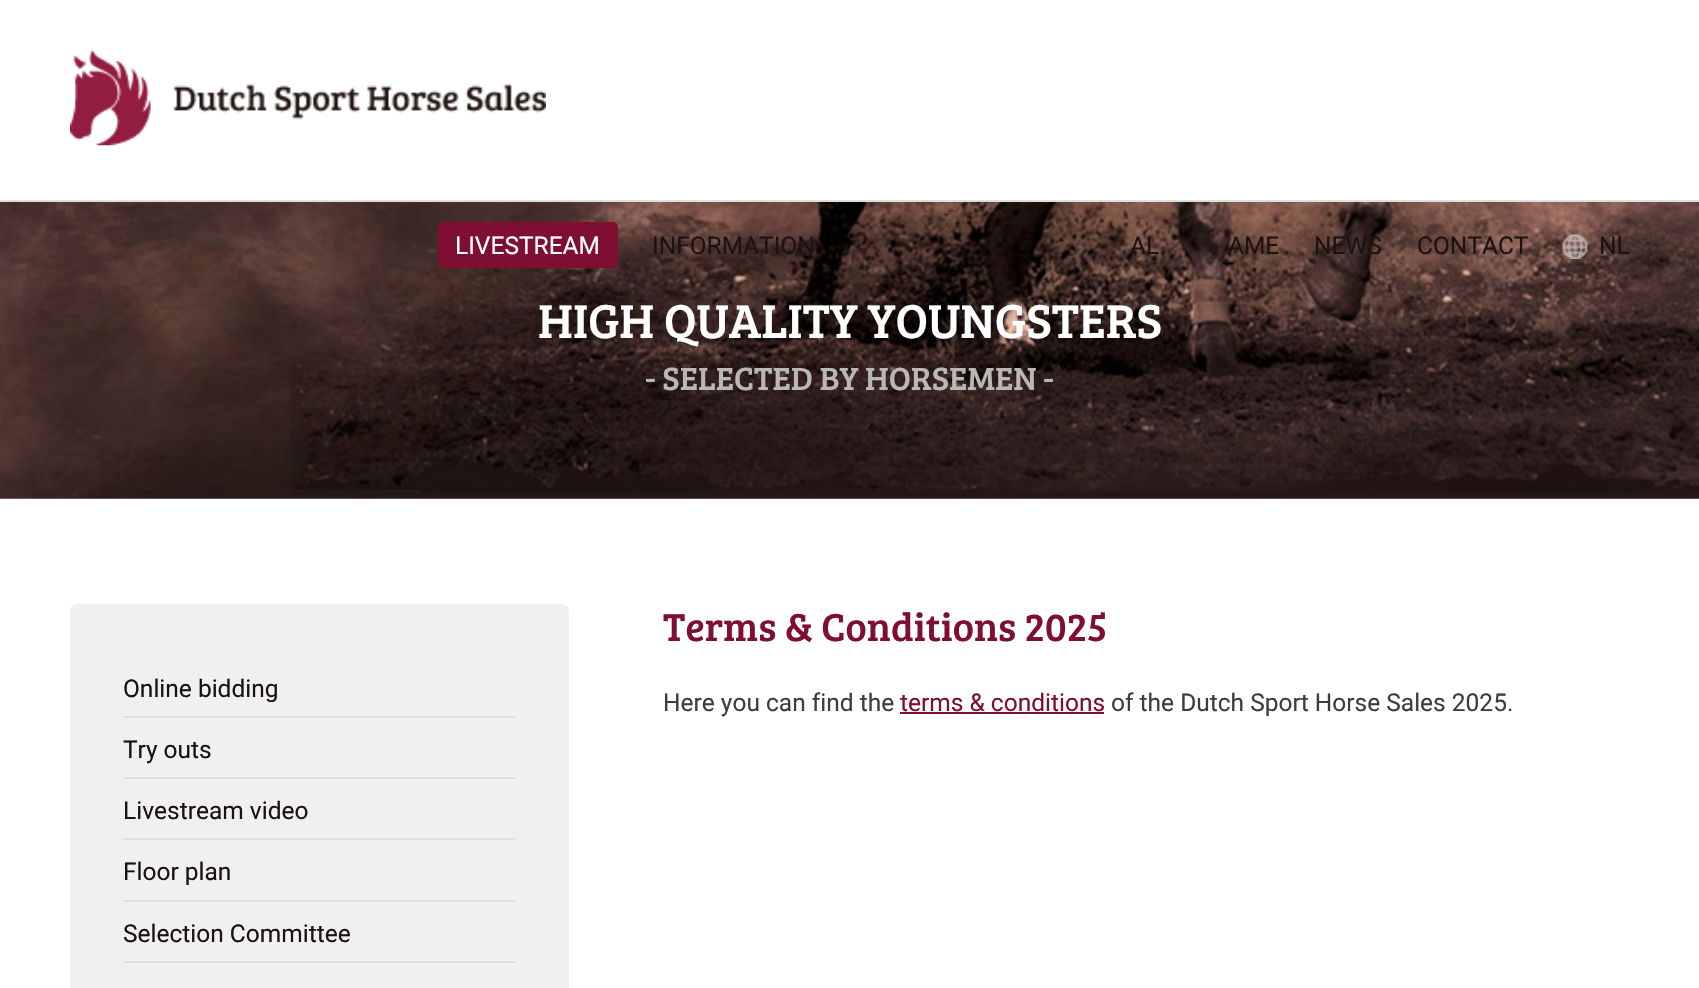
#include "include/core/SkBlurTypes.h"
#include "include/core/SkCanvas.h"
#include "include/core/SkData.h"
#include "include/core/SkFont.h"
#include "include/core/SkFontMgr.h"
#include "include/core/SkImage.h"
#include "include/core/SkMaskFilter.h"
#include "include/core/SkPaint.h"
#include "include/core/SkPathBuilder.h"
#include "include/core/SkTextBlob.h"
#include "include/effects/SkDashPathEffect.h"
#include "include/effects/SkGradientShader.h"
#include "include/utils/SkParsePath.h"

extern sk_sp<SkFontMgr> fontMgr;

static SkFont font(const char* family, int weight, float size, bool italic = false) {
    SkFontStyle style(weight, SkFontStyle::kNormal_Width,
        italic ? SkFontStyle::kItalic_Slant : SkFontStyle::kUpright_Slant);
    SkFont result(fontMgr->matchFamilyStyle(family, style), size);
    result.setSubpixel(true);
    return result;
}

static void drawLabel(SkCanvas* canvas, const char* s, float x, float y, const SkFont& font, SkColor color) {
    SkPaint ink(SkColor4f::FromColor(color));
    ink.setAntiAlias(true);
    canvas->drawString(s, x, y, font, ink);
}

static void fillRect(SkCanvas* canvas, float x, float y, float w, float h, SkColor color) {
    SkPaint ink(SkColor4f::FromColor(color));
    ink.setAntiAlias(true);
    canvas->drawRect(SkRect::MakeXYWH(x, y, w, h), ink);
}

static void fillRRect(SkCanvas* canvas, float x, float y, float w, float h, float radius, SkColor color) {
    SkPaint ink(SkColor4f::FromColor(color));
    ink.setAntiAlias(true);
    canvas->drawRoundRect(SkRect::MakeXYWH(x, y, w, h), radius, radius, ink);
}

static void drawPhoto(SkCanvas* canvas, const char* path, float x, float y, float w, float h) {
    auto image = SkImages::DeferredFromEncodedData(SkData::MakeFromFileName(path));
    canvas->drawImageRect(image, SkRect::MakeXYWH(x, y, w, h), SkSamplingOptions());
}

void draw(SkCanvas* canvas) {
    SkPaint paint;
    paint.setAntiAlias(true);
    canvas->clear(0xFFFFFFFF);
    fillRect(canvas, 0, 200, 1699, 2, 0xFFE0DFDF);
    drawPhoto(canvas, "assets/img1.png", 70, 50, 476, 96);
    drawPhoto(canvas, "assets/img3.png", 0, 202, 1699, 297);
    fillRRect(canvas, 438, 222, 180, 46, 5, 0xFF7E0E32);
    SkFont font1 = font("Roboto", 400, 24.5f);
    drawLabel(canvas, "LIVESTREAM", 455, 254, font1, 0xFFFFFFFF);
    drawLabel(canvas, "INFORMATION", 652, 254, font1, 0xFF1B1211);
    drawLabel(canvas, "AL", 1130, 254, font1, 0xFF1B1211);
    drawLabel(canvas, "AME", 1228, 254, font1, 0xFF1B1211);
    drawLabel(canvas, "NEWS", 1314, 254, font1, 0xFF1B1211);
    drawLabel(canvas, "CONTACT", 1417, 254, font1, 0xFF1B1211);
    drawPhoto(canvas, "assets/img2.png", 1562, 234, 26, 25);
    drawLabel(canvas, "NL", 1599, 254, font1, 0xFF1B1211);
    SkFont font2 = font("Bree Serif", 400, 49);
    drawLabel(canvas, "HIGH QUALITY YOUNGSTERS", 538, 338, font2, 0xFFFFFFFF);
    SkFont font3 = font("Bree Serif", 400, 33.25f);
    drawLabel(canvas, "- SELECTED BY HORSEMEN -", 645, 390, font3, 0xFFBAB7B7);
    SkFont font4 = font("Bree Serif", 400, 40.25f);
    drawLabel(canvas, "Terms & Conditions 2025", 663, 641, font4, 0xFF7E0E32);
    drawLabel(canvas, "Here you can find the", 663, 711, font1, 0xFF3D3D3D);
    drawLabel(canvas, "terms & conditions", 900, 711, font1, 0xFF7E0E32);
    fillRect(canvas, 900, 712, 204, 2, 0xFF7E0E32);
    drawLabel(canvas, "of the Dutch Sport Horse Sales 2025.", 1111, 711, font1, 0xFF3D3D3D);
    fillRRect(canvas, 70, 604, 499, 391, 7, 0xFFF0F0F0);
    fillRect(canvas, 123, 716, 393, 2, 0xFFE0DFDF);
    drawLabel(canvas, "Online bidding", 123, 697, font1, 0xFF1B1211);
    fillRect(canvas, 123, 777, 393, 2, 0xFFE0DFDF);
    drawLabel(canvas, "Try outs", 123, 758, font1, 0xFF1B1211);
    fillRect(canvas, 123, 838, 393, 2, 0xFFE0DFDF);
    drawLabel(canvas, "Livestream video", 123, 819, font1, 0xFF1B1211);
    fillRect(canvas, 123, 900, 393, 2, 0xFFE0DFDF);
    drawLabel(canvas, "Floor plan", 123, 880, font1, 0xFF1B1211);
    fillRect(canvas, 123, 961, 393, 2, 0xFFE0DFDF);
    drawLabel(canvas, "Selection Committee", 123, 942, font1, 0xFF1B1211);
}
